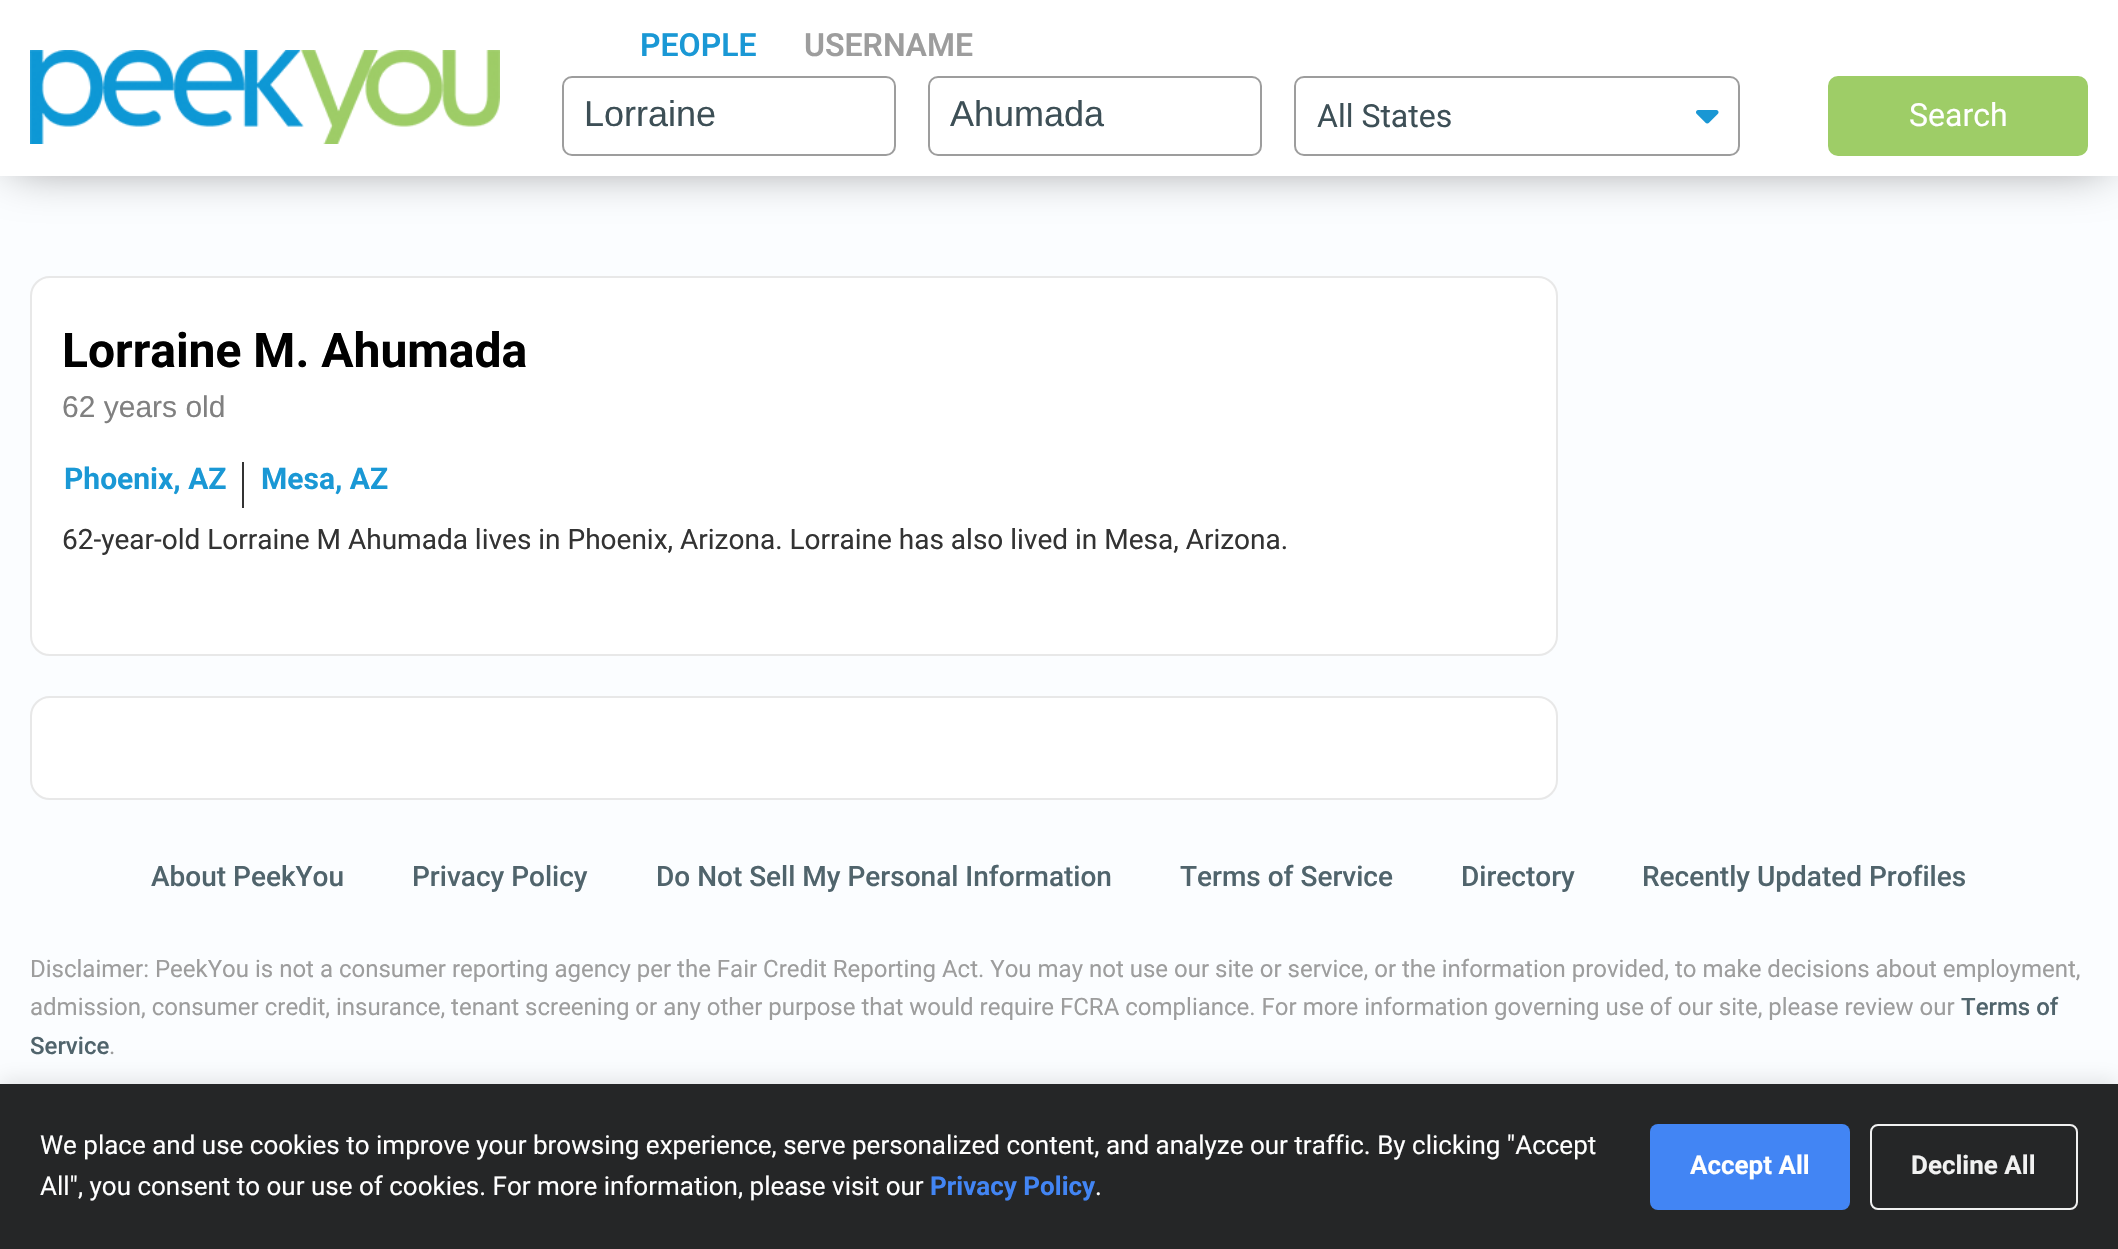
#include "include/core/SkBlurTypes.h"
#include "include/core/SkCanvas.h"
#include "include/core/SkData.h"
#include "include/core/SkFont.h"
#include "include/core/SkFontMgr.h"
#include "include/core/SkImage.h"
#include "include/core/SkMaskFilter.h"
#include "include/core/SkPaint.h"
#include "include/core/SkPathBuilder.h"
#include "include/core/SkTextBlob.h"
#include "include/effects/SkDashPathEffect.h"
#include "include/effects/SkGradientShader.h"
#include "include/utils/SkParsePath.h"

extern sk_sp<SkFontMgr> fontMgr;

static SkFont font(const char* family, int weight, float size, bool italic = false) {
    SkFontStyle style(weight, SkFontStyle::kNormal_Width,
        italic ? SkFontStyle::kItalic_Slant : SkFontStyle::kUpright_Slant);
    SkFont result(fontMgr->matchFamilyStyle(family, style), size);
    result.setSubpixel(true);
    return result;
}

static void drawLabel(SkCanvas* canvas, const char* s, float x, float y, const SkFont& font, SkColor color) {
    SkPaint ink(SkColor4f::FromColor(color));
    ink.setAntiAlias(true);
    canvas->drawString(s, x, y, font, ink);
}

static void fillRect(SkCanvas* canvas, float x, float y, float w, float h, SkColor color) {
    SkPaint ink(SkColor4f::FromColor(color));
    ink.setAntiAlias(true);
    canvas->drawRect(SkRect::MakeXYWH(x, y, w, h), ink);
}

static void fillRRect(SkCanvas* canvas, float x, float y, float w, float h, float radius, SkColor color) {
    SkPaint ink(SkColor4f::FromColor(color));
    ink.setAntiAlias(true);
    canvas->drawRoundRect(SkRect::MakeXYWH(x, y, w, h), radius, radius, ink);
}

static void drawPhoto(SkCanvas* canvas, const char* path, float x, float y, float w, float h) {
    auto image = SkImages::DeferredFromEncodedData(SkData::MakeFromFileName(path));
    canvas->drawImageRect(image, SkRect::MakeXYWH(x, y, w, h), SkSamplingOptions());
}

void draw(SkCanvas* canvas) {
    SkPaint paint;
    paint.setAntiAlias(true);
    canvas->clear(0xFFFBFDFF);
    paint.setColor(0x80000000);
    paint.setMaskFilter(SkMaskFilter::MakeBlur(kNormal_SkBlurStyle, 25));
    canvas->drawRect(SkRect::MakeXYWH(12, 12, 2094, 152), paint);
    paint.setMaskFilter(nullptr);
    fillRect(canvas, 0, 0, 2118, 176, 0xFFFFFFFF);
    drawPhoto(canvas, "assets/img1.png", 30, 50, 470, 94);
    SkFont font1 = font("Roboto", 600, 32);
    drawLabel(canvas, "PEOPLE", 640, 56, font1, 0xFF1A98D5);
    drawLabel(canvas, "USERNAME", 804, 56, font1, 0xFF9D9D9D);
    paint.setStroke(true);
    paint.setStrokeWidth(2);
    paint.setColor(0xFF9D9D9D);
    canvas->drawRoundRect(SkRect::MakeXYWH(563, 77, 332, 78), 9, 9, paint);
    SkFont font2 = font("Liberation Sans", 400, 36);
    drawLabel(canvas, "Lorraine", 584, 126, font2, 0xFF3D4F56);
    canvas->drawRoundRect(SkRect::MakeXYWH(929, 77, 332, 78), 9, 9, paint);
    drawLabel(canvas, "Ahumada", 950, 126, font2, 0xFF3D4F56);
    canvas->drawRoundRect(SkRect::MakeXYWH(1295, 77, 444, 78), 9, 9, paint);
    SkFont font3 = font("Roboto", 400, 32);
    drawLabel(canvas, "All States", 1317, 127, font3, 0xFF3D4F56);
    drawPhoto(canvas, "assets/img2.png", 1696, 110, 23, 14);
    paint.setStroke(false);
    paint.setColor(0xFF9ECD67);
    canvas->drawRoundRect(SkRect::MakeXYWH(1829, 77, 258, 78), 9, 9, paint);
    paint.setStroke(true);
    canvas->drawRoundRect(SkRect::MakeXYWH(1829, 77, 258, 78), 9, 9, paint);
    drawLabel(canvas, "Search", 1909, 126, font3, 0xFFFFFFFF);
    paint.setStroke(false);
    paint.setColor(0xFFFFFFFF);
    canvas->drawRoundRect(SkRect::MakeXYWH(31, 277, 1526, 378), 19, 19, paint);
    paint.setStroke(true);
    paint.setColor(0xFFE8E8E8);
    canvas->drawRoundRect(SkRect::MakeXYWH(31, 277, 1526, 378), 19, 19, paint);
    SkFont font4 = font("Roboto", 700, 48);
    drawLabel(canvas, "Lorraine M. Ahumada", 62, 367, font4, 0xFF000000);
    SkFont font5 = font("Liberation Sans", 400, 30);
    drawLabel(canvas, "62 years old", 62, 417, font5, 0xFF808080);
    SkFont font6 = font("Roboto", 700, 30);
    drawLabel(canvas, "Phoenix, AZ", 64, 489, font6, 0xFF1A98D5);
    fillRect(canvas, 242, 462, 2, 46, 0xFF333333);
    drawLabel(canvas, "Mesa, AZ", 261, 489, font6, 0xFF1A98D5);
    SkFont font7 = font("Roboto", 400, 28);
    drawLabel(canvas, "62-year-old Lorraine M Ahumada lives in Phoenix, Arizona. Lorraine has also lived in Mesa, Arizona.", 62, 549, font7, 0xFF333333);
    paint.setStroke(false);
    paint.setColor(0xFFFFFFFF);
    canvas->drawRoundRect(SkRect::MakeXYWH(31, 697, 1526, 102), 19, 19, paint);
    paint.setStroke(true);
    paint.setColor(0xFFE8E8E8);
    canvas->drawRoundRect(SkRect::MakeXYWH(31, 697, 1526, 102), 19, 19, paint);
    SkFont font8 = font("Roboto", 500, 28);
    drawLabel(canvas, "About PeekYou", 151, 886, font8, 0xFF50646C);
    drawLabel(canvas, "Privacy Policy", 412, 886, font8, 0xFF50646C);
    drawLabel(canvas, "Do Not Sell My Personal Information", 656, 886, font8, 0xFF50646C);
    drawLabel(canvas, "Terms of Service", 1180, 886, font8, 0xFF50646C);
    drawLabel(canvas, "Directory", 1461, 886, font8, 0xFF50646C);
    drawLabel(canvas, "Recently Updated Profiles", 1642, 886, font8, 0xFF50646C);
    SkFont font9 = font("Roboto", 400, 24);
    drawLabel(canvas, "Disclaimer: PeekYou is not a consumer reporting agency per the Fair Credit Reporting Act. You may not use our site or service, or the information provided, to make decisions about employment,", 30, 977, font9, 0xFF9D9D9D);
    drawLabel(canvas, "admission, consumer credit, insurance, tenant screening or any other purpose that would require FCRA compliance. For more information governing use of our site, please review our", 30, 1015, font9, 0xFF9D9D9D);
    SkFont font10 = font("Roboto", 500, 24);
    drawLabel(canvas, "Terms of", 1961, 1015, font10, 0xFF50646C);
    drawLabel(canvas, "Service", 30, 1054, font10, 0xFF50646C);
    drawLabel(canvas, ".", 109, 1054, font9, 0xFF9D9D9D);
    paint.setStroke(false);
    paint.setColor(0x1A000000);
    paint.setMaskFilter(SkMaskFilter::MakeBlur(kNormal_SkBlurStyle, 10));
    canvas->drawRect(SkRect::MakeXYWH(0, 1080, 2118, 166), paint);
    paint.setMaskFilter(nullptr);
    fillRect(canvas, 0, 1084, 2118, 165, 0xFF252627);
    SkFont font11 = font("Roboto", 400, 26);
    drawLabel(canvas, "We place and use cookies to improve your browsing experience, serve personalized content, and analyze our traffic. By clicking \"Accept", 40, 1154, font11, 0xFFFFFFFF);
    drawLabel(canvas, "All\", you consent to our use of cookies. For more information, please visit our", 40, 1195, font11, 0xFFFFFFFF);
    SkFont font12 = font("Roboto", 700, 26);
    drawLabel(canvas, "Privacy Policy", 930, 1195, font12, 0xFF4285F4);
    drawLabel(canvas, ".", 1095, 1195, font11, 0xFFFFFFFF);
    fillRRect(canvas, 1650, 1124, 200, 86, 8, 0xFF4285F4);
    drawLabel(canvas, "Accept All", 1690, 1174, font12, 0xFFFFFFFF);
    paint.setStroke(true);
    paint.setColor(0xFFF1F1F1);
    canvas->drawRoundRect(SkRect::MakeXYWH(1871, 1125, 206, 84), 7, 7, paint);
    drawLabel(canvas, "Decline All", 1911, 1174, font12, 0xFFF1F1F1);
}
